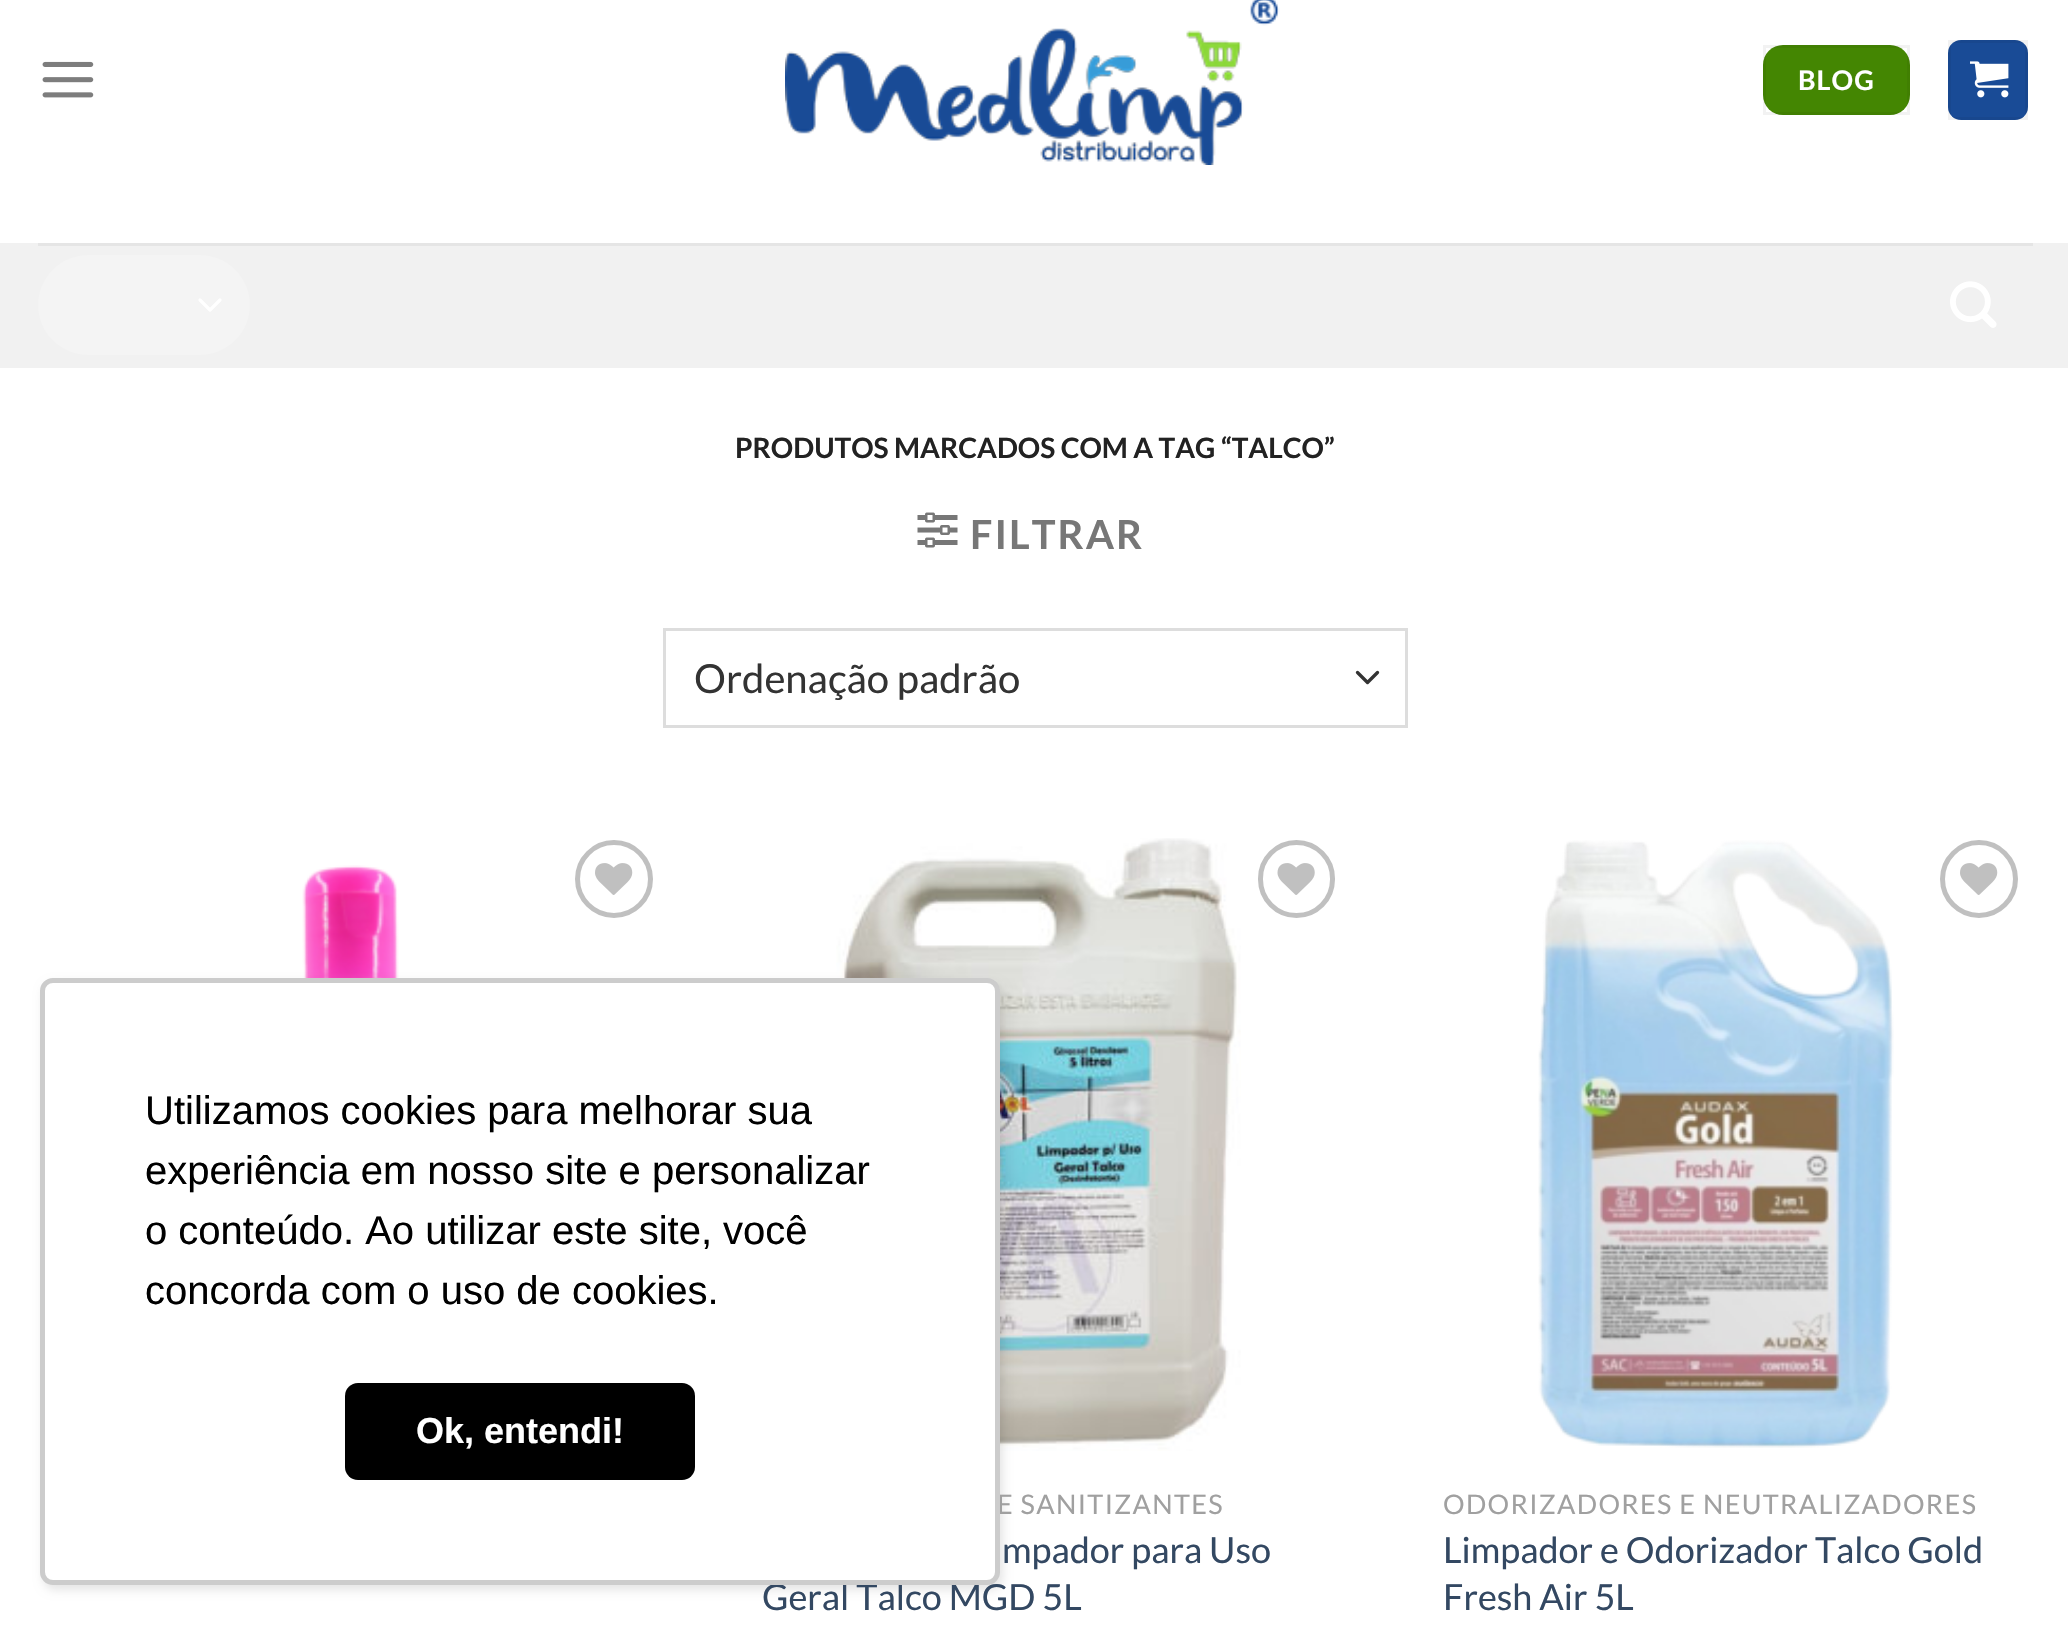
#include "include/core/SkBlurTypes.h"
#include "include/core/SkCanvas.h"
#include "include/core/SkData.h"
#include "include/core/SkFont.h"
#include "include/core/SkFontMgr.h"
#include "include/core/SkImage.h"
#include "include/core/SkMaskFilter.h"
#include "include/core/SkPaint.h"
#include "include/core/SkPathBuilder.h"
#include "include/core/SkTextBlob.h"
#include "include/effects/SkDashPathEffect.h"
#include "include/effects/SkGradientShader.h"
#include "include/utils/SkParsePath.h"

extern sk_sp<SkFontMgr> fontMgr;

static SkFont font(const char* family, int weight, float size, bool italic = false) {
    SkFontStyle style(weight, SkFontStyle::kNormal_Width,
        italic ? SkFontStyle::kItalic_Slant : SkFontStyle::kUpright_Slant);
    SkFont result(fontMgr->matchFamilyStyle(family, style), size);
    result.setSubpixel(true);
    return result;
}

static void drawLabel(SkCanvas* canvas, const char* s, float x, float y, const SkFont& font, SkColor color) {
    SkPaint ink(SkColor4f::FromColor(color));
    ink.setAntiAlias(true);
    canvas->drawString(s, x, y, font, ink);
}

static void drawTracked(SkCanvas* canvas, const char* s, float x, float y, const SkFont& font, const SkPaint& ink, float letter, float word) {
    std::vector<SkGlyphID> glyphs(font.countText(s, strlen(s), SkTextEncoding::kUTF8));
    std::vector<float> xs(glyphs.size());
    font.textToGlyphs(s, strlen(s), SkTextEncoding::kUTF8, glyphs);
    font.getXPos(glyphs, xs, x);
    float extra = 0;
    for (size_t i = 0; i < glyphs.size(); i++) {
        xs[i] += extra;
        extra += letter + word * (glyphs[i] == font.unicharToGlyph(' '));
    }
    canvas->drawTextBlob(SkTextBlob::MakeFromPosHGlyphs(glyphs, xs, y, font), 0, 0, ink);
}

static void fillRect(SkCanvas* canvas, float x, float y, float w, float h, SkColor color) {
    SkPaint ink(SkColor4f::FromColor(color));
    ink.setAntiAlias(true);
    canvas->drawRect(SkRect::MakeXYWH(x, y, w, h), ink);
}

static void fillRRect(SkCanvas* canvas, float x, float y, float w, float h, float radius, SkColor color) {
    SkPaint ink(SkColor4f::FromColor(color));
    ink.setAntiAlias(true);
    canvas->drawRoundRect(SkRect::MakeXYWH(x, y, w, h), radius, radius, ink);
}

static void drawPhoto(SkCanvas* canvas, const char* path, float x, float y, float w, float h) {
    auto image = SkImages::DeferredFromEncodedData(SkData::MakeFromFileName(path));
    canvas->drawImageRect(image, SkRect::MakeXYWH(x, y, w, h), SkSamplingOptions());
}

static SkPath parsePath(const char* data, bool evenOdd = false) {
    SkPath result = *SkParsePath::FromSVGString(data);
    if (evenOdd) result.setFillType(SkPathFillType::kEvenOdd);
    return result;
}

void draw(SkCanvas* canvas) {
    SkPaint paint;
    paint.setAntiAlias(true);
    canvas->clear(0xFFFFFFFF);
    drawPhoto(canvas, "assets/img6.png", 302, 865, 97, 113);
    drawPhoto(canvas, "assets/img8.png", 836, 838, 405, 613);
    paint.setColor(0x1A000000);
    paint.setMaskFilter(SkMaskFilter::MakeBlur(kNormal_SkBlurStyle, 5));
    canvas->drawRoundRect(SkRect::MakeXYWH(43, 983, 960, 607), 13, 13, paint);
    paint.setMaskFilter(nullptr);
    SkFont font1 = font("Lato", 400, 27);
    paint.setColor(0xFFA0A0A0);
    drawTracked(canvas, "E SANITIZANTES", 997, 1514, font1, paint, 1.35f, 0);
    SkFont font2 = font("Lato", 400, 36);
    drawLabel(canvas, "Geral Talco MGD 5L", 762, 1610, font2, 0xFF334862);
    fillRRect(canvas, 40, 978, 960, 607, 13, 0xFFFFFFFF);
    paint.setStroke(true);
    paint.setStrokeWidth(5);
    paint.setColor(0x33000000);
    canvas->drawRoundRect(SkRect::MakeXYWH(42.5f, 980.5f, 955, 602), 10.5f, 10.5f, paint);
    SkFont font3 = font("Liberation Sans", 400, 40);
    drawLabel(canvas, "Utilizamos cookies para melhorar sua", 145, 1124, font3, 0xFF000000);
    drawLabel(canvas, "experiência em nosso site e personalizar", 145, 1184, font3, 0xFF000000);
    drawLabel(canvas, "o conteúdo. Ao utilizar este site, você", 145, 1244, font3, 0xFF000000);
    drawLabel(canvas, "concorda com o uso de cookies.", 145, 1304, font3, 0xFF000000);
    fillRRect(canvas, 345, 1383, 350, 97, 13, 0xFF000000);
    SkFont font4 = font("Liberation Sans", 700, 36);
    drawLabel(canvas, "Ok, entendi!", 416, 1443, font4, 0xFFFFFFFF);
    drawPhoto(canvas, "assets/img1.png", 42, 61, 52, 37);
    drawPhoto(canvas, "assets/img2.png", 785, 0, 495, 165);
    fillRRect(canvas, 1763, 45, 147, 70, 20, 0xFF448602);
    paint.setStrokeWidth(3);
    paint.setColor(0x0D000000);
    canvas->drawRect(SkRect::MakeXYWH(1764.5f, 46.5f, 144, 67), paint);
    SkFont font5 = font("Lato", 700, 27);
    paint.setStroke(false);
    paint.setColor(0xFFFFFFFF);
    drawTracked(canvas, "BLOG", 1798, 90, font5, paint, 1, 0);
    fillRRect(canvas, 1948, 40, 80, 80, 13, 0xFF194B96);
    paint.setStroke(true);
    paint.setColor(0x0D000000);
    canvas->drawRect(SkRect::MakeXYWH(1949.5f, 41.5f, 77, 77), paint);
    drawPhoto(canvas, "assets/img3.png", 1970, 61, 39, 37);
    fillRect(canvas, 0, 243, 2068, 125, 0xFFF1F1F1);
    fillRect(canvas, 38, 243, 1995, 3, 0xFFE5E5E5);
    fillRRect(canvas, 38, 255, 212, 100, 50, 0xFFF4F4F4);
    paint.setStrokeWidth(3.3f);
    paint.setStrokeCap(SkPaint::kRound_Cap);
    paint.setStrokeJoin(SkPaint::kRound_Join);
    paint.setColor(0xFFFFFFFF);
    canvas->drawPath(parsePath("M200 300L210 310L220 300"), paint);
    drawPhoto(canvas, "assets/img4.png", 1950, 281, 47, 47);
    SkFont font6 = font("Lato", 700, 28);
    drawLabel(canvas, "PRODUTOS MARCADOS COM A TAG “TALCO”", 735, 458, font6, 0xFF222222);
    drawPhoto(canvas, "assets/img5.png", 917, 512, 41, 36);
    SkFont font7 = font("Lato", 700, 40);
    paint.setStroke(false);
    paint.setColor(0xFF777777);
    drawTracked(canvas, "FILTRAR", 970, 549, font7, paint, 2, 0);
    paint.setStroke(true);
    paint.setColor(0xFF333333);
    canvas->drawPath(parsePath("M1357.5 672.5L1367.5 682.5L1377.5 672.5"), paint);
    paint.setStrokeWidth(3);
    paint.setStrokeCap(SkPaint::kButt_Cap);
    paint.setStrokeJoin(SkPaint::kMiter_Join);
    paint.setColor(0xFFDDDDDD);
    canvas->drawRect(SkRect::MakeXYWH(664.5f, 629.5f, 742, 97), paint);
    SkFont font8 = font("Lato", 400, 40);
    drawLabel(canvas, "Ordenação padrão", 694, 693, font8, 0xFF333333);
    paint.setStrokeWidth(5);
    paint.setColor(0xFFC0C0C0);
    canvas->drawCircle(614, 879, 36.5f, paint);
    drawPhoto(canvas, "assets/img7.png", 595, 863, 38, 32);
    canvas->drawRoundRect(SkRect::MakeXYWH(1260.5f, 842.5f, 72, 73), 36, 36, paint);
    drawPhoto(canvas, "assets/img9.png", 1277, 863, 38, 32);
    drawLabel(canvas, "mpador para Uso", 1002, 1563, font2, 0xFF334862);
    drawPhoto(canvas, "assets/img10.png", 1538, 840, 356, 608);
    canvas->drawCircle(1979, 879, 36.5f, paint);
    drawPhoto(canvas, "assets/img7.png", 1960, 863, 38, 32);
    paint.setStroke(false);
    paint.setColor(0xFFA0A0A0);
    drawTracked(canvas, "ODORIZADORES E NEUTRALIZADORES", 1443, 1514, font1, paint, 1.35f, 0);
    drawLabel(canvas, "Limpador e Odorizador Talco Gold", 1443, 1563, font2, 0xFF334862);
    drawLabel(canvas, "Fresh Air 5L", 1443, 1610, font2, 0xFF334862);
}
